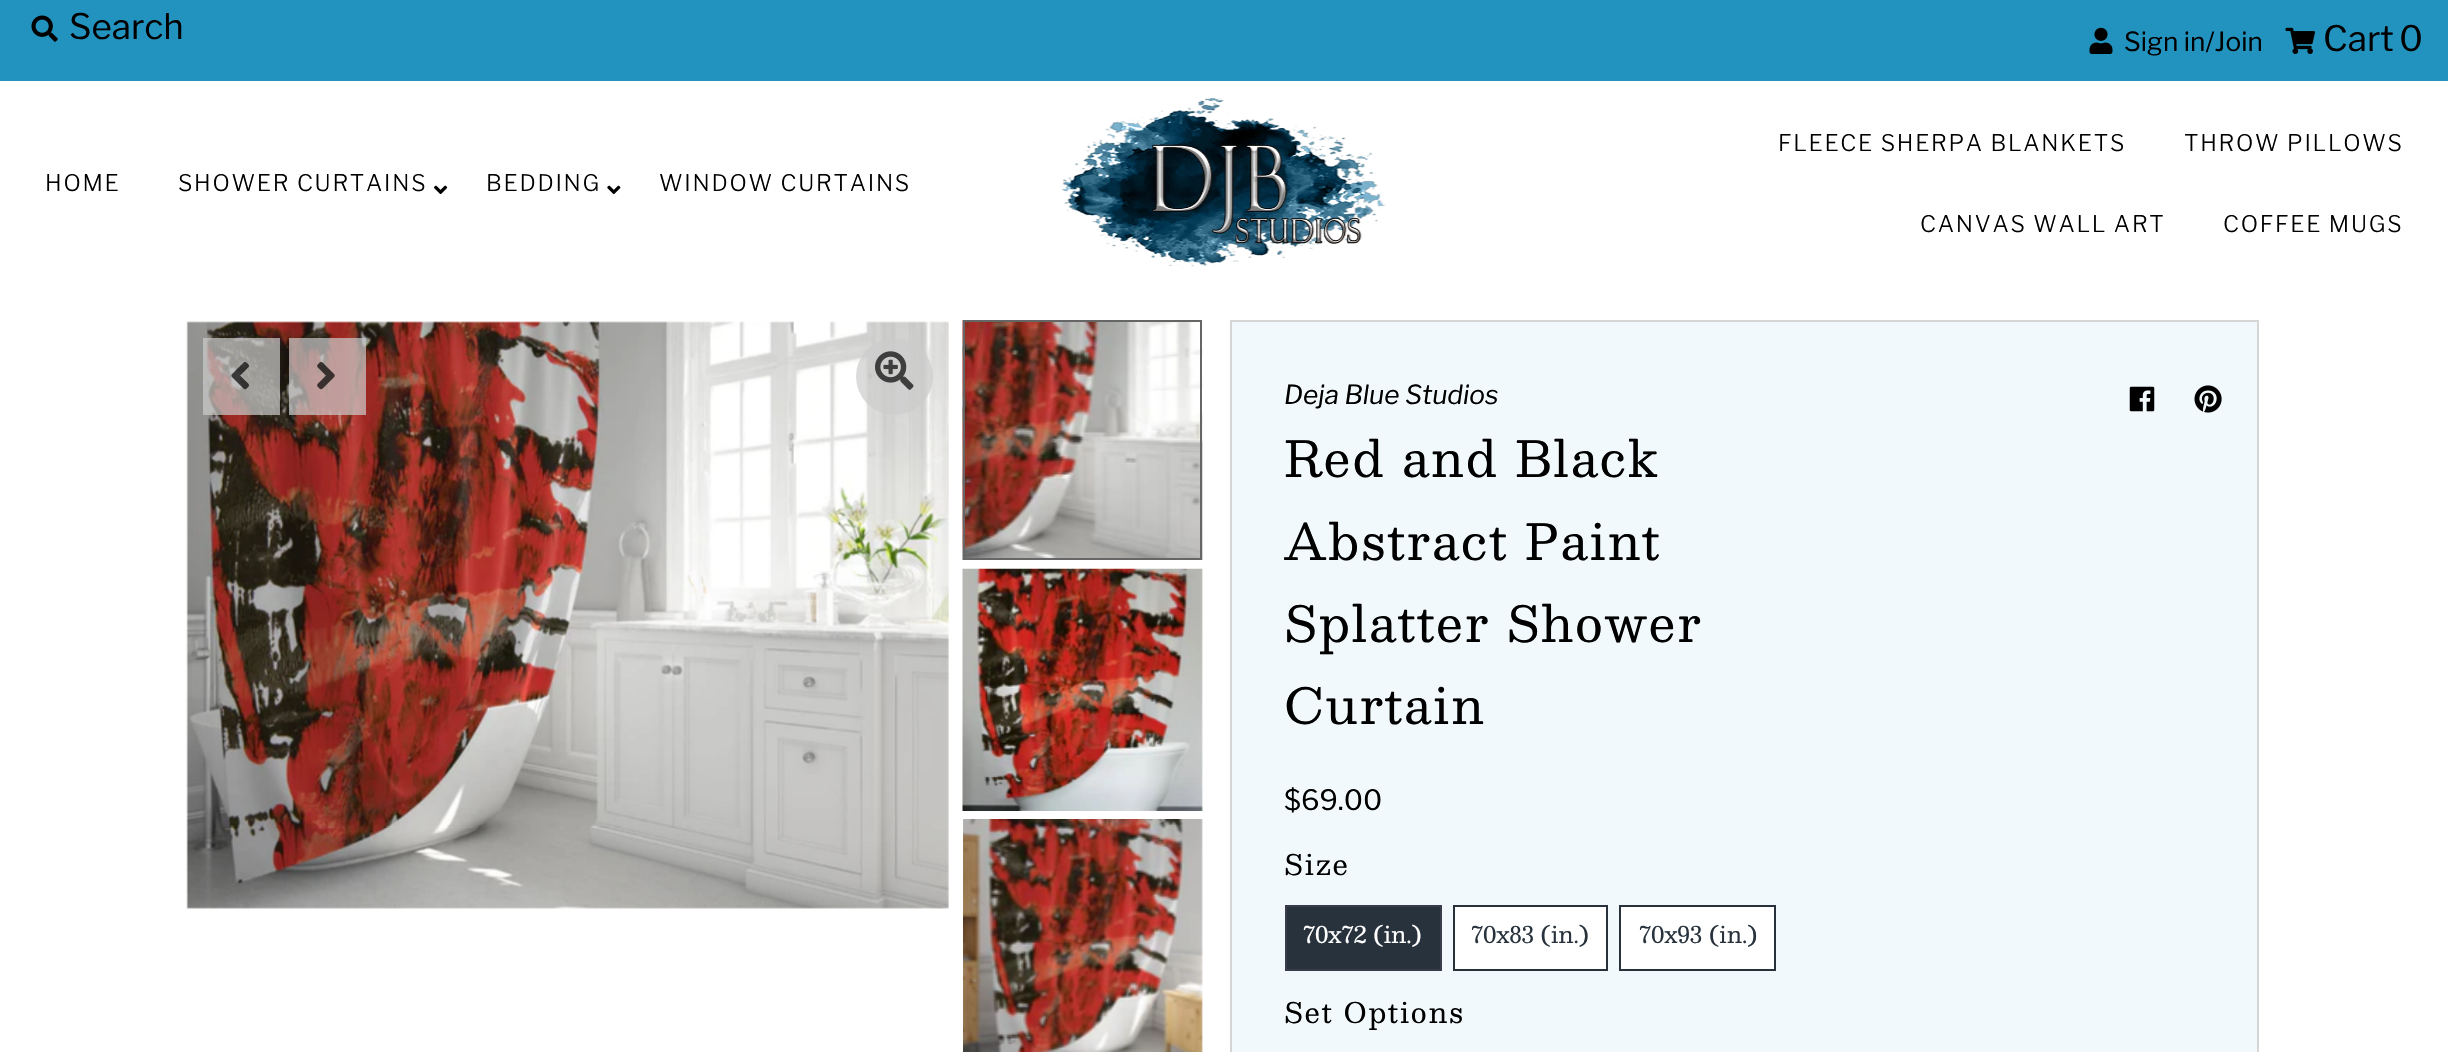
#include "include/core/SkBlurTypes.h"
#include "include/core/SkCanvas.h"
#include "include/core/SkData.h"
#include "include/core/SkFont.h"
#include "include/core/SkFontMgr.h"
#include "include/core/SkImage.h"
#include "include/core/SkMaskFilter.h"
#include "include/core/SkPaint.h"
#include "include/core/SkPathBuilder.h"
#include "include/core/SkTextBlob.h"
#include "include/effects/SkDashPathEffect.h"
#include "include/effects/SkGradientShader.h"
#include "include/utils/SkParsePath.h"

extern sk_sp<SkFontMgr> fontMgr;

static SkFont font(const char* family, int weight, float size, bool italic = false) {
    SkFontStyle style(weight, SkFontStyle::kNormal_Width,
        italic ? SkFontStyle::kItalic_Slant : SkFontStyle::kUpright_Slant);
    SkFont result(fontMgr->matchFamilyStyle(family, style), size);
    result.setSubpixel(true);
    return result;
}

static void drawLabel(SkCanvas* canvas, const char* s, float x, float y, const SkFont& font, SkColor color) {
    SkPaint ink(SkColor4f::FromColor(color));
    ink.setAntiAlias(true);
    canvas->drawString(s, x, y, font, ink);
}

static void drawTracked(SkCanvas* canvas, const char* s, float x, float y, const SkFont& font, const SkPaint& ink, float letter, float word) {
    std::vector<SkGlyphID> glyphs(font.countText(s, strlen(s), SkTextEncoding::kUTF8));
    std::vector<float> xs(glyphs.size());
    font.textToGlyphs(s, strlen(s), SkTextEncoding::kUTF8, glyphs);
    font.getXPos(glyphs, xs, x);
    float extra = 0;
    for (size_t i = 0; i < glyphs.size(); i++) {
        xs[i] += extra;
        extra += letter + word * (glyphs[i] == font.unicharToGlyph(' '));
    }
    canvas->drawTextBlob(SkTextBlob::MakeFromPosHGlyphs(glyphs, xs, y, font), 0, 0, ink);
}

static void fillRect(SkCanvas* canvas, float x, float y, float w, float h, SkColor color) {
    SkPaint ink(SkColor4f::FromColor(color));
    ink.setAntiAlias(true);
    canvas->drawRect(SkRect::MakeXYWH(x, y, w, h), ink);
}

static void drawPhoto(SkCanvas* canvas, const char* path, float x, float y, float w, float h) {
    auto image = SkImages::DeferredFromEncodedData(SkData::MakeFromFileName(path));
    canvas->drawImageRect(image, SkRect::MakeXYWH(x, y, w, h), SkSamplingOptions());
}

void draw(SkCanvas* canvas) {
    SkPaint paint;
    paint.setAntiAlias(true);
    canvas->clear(0xFFFFFFFF);
    fillRect(canvas, 0, 0, 2448, 81, 0xFF2293BE);
    drawPhoto(canvas, "assets/img1.png", 31, 15, 27, 27);
    SkFont font1 = font("Libre Franklin", 400, 35);
    drawLabel(canvas, "Search", 69, 39, font1, 0xFF000000);
    drawPhoto(canvas, "assets/img2.png", 2089, 27, 24, 27);
    SkFont font2 = font("Libre Franklin", 400, 26.25f);
    drawLabel(canvas, "Sign in/Join", 2124, 51, font2, 0xFF000000);
    drawPhoto(canvas, "assets/img3.png", 2285, 27, 30, 27);
    drawLabel(canvas, "Cart", 2323, 51, font1, 0xFF000000);
    drawLabel(canvas, "0", 2399, 51, font1, 0xFF000000);
    SkFont font3 = font("Libre Franklin", 300, 22.75f);
    paint.setColor(0xFF000000);
    drawTracked(canvas, "HOME", 45, 191, font3, paint, 1.75f, 0);
    drawTracked(canvas, "SHOWER CURTAINS", 178, 191, font3, paint, 1.75f, 0);
    drawPhoto(canvas, "assets/img4.png", 434, 185, 14, 10);
    drawTracked(canvas, "BEDDING", 486, 191, font3, paint, 1.75f, 0);
    drawPhoto(canvas, "assets/img5.png", 607, 185, 14, 10);
    drawTracked(canvas, "WINDOW CURTAINS", 659, 191, font3, paint, 1.75f, 0);
    drawPhoto(canvas, "assets/img6.png", 1062, 98, 324, 170);
    drawTracked(canvas, "FLEECE SHERPA BLANKETS", 1778, 151, font3, paint, 1.75f, 0);
    drawTracked(canvas, "THROW PILLOWS", 2184, 151, font3, paint, 1.75f, 0);
    drawTracked(canvas, "CANVAS WALL ART", 1920, 232, font3, paint, 1.75f, 0);
    drawTracked(canvas, "COFFEE MUGS", 2223, 232, font3, paint, 1.75f, 0);
    drawPhoto(canvas, "assets/img7.png", 186, 321, 763, 588);
    paint.setColor(0xB3CCCCCC);
    canvas->drawCircle(894.5f, 376.5f, 38.5f, paint);
    drawPhoto(canvas, "assets/img8.png", 875, 351, 39, 39);
    fillRect(canvas, 203, 338, 77, 77, 0xB3CCCCCC);
    drawPhoto(canvas, "assets/img9.png", 231, 362, 18, 28);
    fillRect(canvas, 289, 338, 77, 77, 0xB3CCCCCC);
    drawPhoto(canvas, "assets/img10.png", 317, 362, 18, 28);
    drawPhoto(canvas, "assets/img11.png", 962, 320, 241, 240);
    paint.setStroke(true);
    paint.setStrokeWidth(2);
    paint.setColor(0xFF666666);
    canvas->drawRect(SkRect::MakeXYWH(964, 321, 237, 238), paint);
    drawPhoto(canvas, "assets/img12.png", 962, 568, 241, 243);
    drawPhoto(canvas, "assets/img13.png", 963, 819, 240, 233);
    paint.setStroke(false);
    paint.setColor(0xFFF1F9FC);
    canvas->drawRect(SkRect::MakeXYWH(1231, 321, 1027, 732), paint);
    paint.setStroke(true);
    paint.setColor(0xFFD5D5D5);
    canvas->drawRect(SkRect::MakeXYWH(1231, 321, 1027, 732), paint);
    SkFont font4 = font("Libre Franklin", 400, 26.25f, true);
    drawLabel(canvas, "Deja Blue Studios", 1284, 404, font4, 0xFF000000);
    drawPhoto(canvas, "assets/img14.png", 2129, 386, 26, 26);
    drawPhoto(canvas, "assets/img15.png", 2194, 385, 28, 28);
    SkFont font5 = font("Besley", 400, 49);
    paint.setStroke(false);
    paint.setColor(0xFF000000);
    drawTracked(canvas, "Red and Black", 1284, 477, font5, paint, 1.75f, 0);
    drawTracked(canvas, "Abstract Paint", 1284, 560, font5, paint, 1.75f, 0);
    drawTracked(canvas, "Splatter Shower", 1284, 642, font5, paint, 1.75f, 0);
    drawTracked(canvas, "Curtain", 1284, 724, font5, paint, 1.75f, 0);
    SkFont font6 = font("Libre Franklin", 400, 28);
    drawLabel(canvas, "$69.00", 1284, 810, font6, 0xFF000000);
    SkFont font7 = font("Besley", 400, 28);
    drawTracked(canvas, "Size", 1284, 875, font7, paint, 1.75f, 0);
    paint.setColor(0xFF28323C);
    canvas->drawRect(SkRect::MakeXYWH(1286, 906, 155, 64), paint);
    paint.setStroke(true);
    paint.setColor(0xFF393C4A);
    canvas->drawRect(SkRect::MakeXYWH(1286, 906, 155, 64), paint);
    SkFont font8 = font("Besley", 400, 22.75f);
    drawLabel(canvas, "70x72 (in.)", 1303, 943, font8, 0xFFFFFFFF);
    paint.setStroke(false);
    paint.setColor(0xFFFFFFFF);
    canvas->drawRect(SkRect::MakeXYWH(1454, 906, 153, 64), paint);
    paint.setStroke(true);
    paint.setColor(0xFF28323C);
    canvas->drawRect(SkRect::MakeXYWH(1454, 906, 153, 64), paint);
    drawLabel(canvas, "70x83 (in.)", 1471, 943, font8, 0xFF28323C);
    paint.setStroke(false);
    paint.setColor(0xFFFFFFFF);
    canvas->drawRect(SkRect::MakeXYWH(1620, 906, 155, 64), paint);
    paint.setStroke(true);
    paint.setColor(0xFF28323C);
    canvas->drawRect(SkRect::MakeXYWH(1620, 906, 155, 64), paint);
    drawLabel(canvas, "70x93 (in.)", 1639, 943, font8, 0xFF28323C);
    paint.setStroke(false);
    paint.setColor(0xFF000000);
    drawTracked(canvas, "Set Options", 1284, 1023, font7, paint, 1.75f, 0);
}
